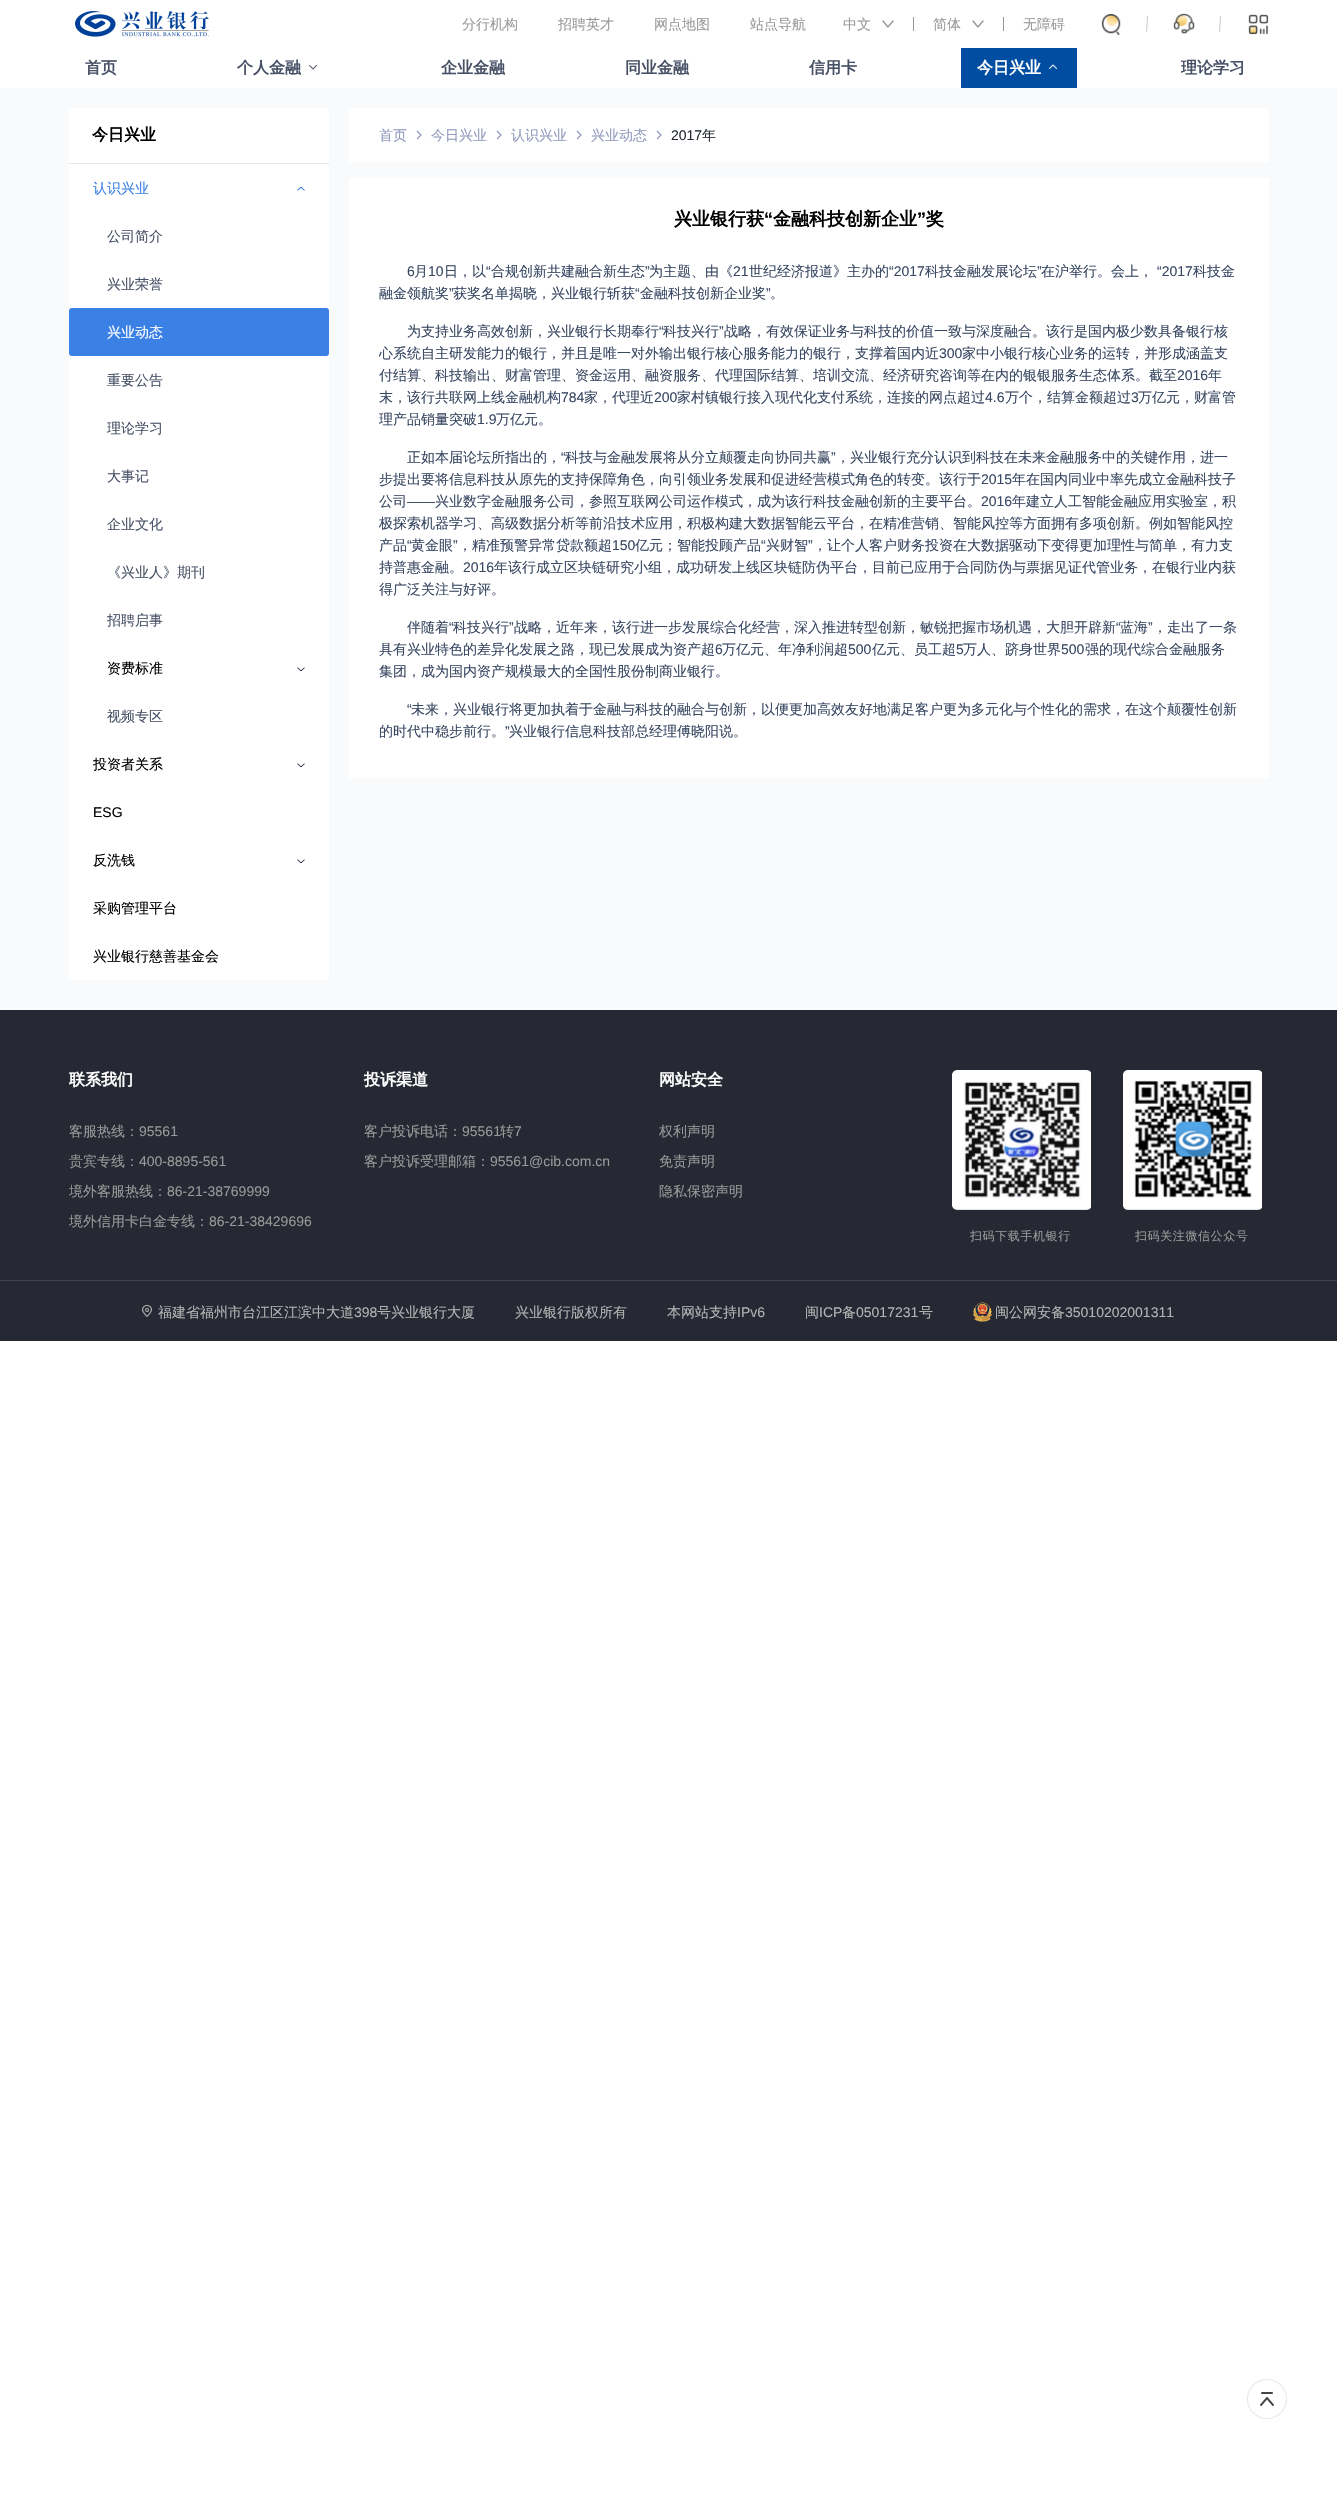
#include "include/core/SkBlurTypes.h"
#include "include/core/SkCanvas.h"
#include "include/core/SkData.h"
#include "include/core/SkFont.h"
#include "include/core/SkFontMgr.h"
#include "include/core/SkImage.h"
#include "include/core/SkMaskFilter.h"
#include "include/core/SkPaint.h"
#include "include/core/SkPathBuilder.h"
#include "include/core/SkTextBlob.h"
#include "include/effects/SkDashPathEffect.h"
#include "include/effects/SkGradientShader.h"
#include "include/utils/SkParsePath.h"

extern sk_sp<SkFontMgr> fontMgr;

static SkFont font(const char* family, int weight, float size, bool italic = false) {
    SkFontStyle style(weight, SkFontStyle::kNormal_Width,
        italic ? SkFontStyle::kItalic_Slant : SkFontStyle::kUpright_Slant);
    SkFont result(fontMgr->matchFamilyStyle(family, style), size);
    result.setSubpixel(true);
    return result;
}

static void drawLabel(SkCanvas* canvas, const char* s, float x, float y, const SkFont& font, SkColor color) {
    SkPaint ink(SkColor4f::FromColor(color));
    ink.setAntiAlias(true);
    canvas->drawString(s, x, y, font, ink);
}

static void drawTracked(SkCanvas* canvas, const char* s, float x, float y, const SkFont& font, const SkPaint& ink, float letter, float word) {
    std::vector<SkGlyphID> glyphs(font.countText(s, strlen(s), SkTextEncoding::kUTF8));
    std::vector<float> xs(glyphs.size());
    font.textToGlyphs(s, strlen(s), SkTextEncoding::kUTF8, glyphs);
    font.getXPos(glyphs, xs, x);
    float extra = 0;
    for (size_t i = 0; i < glyphs.size(); i++) {
        xs[i] += extra;
        extra += letter + word * (glyphs[i] == font.unicharToGlyph(' '));
    }
    canvas->drawTextBlob(SkTextBlob::MakeFromPosHGlyphs(glyphs, xs, y, font), 0, 0, ink);
}

static void fillRect(SkCanvas* canvas, float x, float y, float w, float h, SkColor color) {
    SkPaint ink(SkColor4f::FromColor(color));
    ink.setAntiAlias(true);
    canvas->drawRect(SkRect::MakeXYWH(x, y, w, h), ink);
}

static void fillRRect(SkCanvas* canvas, float x, float y, float w, float h, float radius, SkColor color) {
    SkPaint ink(SkColor4f::FromColor(color));
    ink.setAntiAlias(true);
    canvas->drawRoundRect(SkRect::MakeXYWH(x, y, w, h), radius, radius, ink);
}

static void drawPhoto(SkCanvas* canvas, const char* path, float x, float y, float w, float h) {
    auto image = SkImages::DeferredFromEncodedData(SkData::MakeFromFileName(path));
    canvas->drawImageRect(image, SkRect::MakeXYWH(x, y, w, h), SkSamplingOptions());
}

static SkPath parsePath(const char* data, bool evenOdd = false) {
    SkPath result = *SkParsePath::FromSVGString(data);
    if (evenOdd) result.setFillType(SkPathFillType::kEvenOdd);
    return result;
}

void draw(SkCanvas* canvas) {
    SkPaint paint;
    paint.setAntiAlias(true);
    canvas->clear(0xFFFFFFFF);
    drawPhoto(canvas, "assets/img1.png", 75, 11, 134, 26);
    SkFont font1 = font("WenQuanYi Zen Hei", 500, 14);
    drawLabel(canvas, "分行机构", 462, 29, font1, 0xFF999999);
    drawLabel(canvas, "招聘英才", 558, 29, font1, 0xFF999999);
    drawLabel(canvas, "网点地图", 654, 29, font1, 0xFF999999);
    drawLabel(canvas, "站点导航", 750, 29, font1, 0xFF999999);
    drawLabel(canvas, "中文", 843, 29, font1, 0xFF999999);
    drawPhoto(canvas, "assets/img2.png", 882, 20, 12, 8);
    fillRect(canvas, 913, 17, 1, 14, 0xFF999999);
    drawLabel(canvas, "简体", 933, 29, font1, 0xFF999999);
    drawPhoto(canvas, "assets/img2.png", 972, 20, 12, 8);
    fillRect(canvas, 1003, 17, 1, 14, 0xFF999999);
    drawLabel(canvas, "无障碍", 1023, 29, font1, 0xFF999999);
    drawPhoto(canvas, "assets/img3.png", 1101, 14, 20, 21);
    paint.setColor(0xFF999999);
    canvas->drawPath(parsePath("M1147 16H1147.5L1147 32H1146.5Z"), paint);
    drawPhoto(canvas, "assets/img4.png", 1173, 13, 22, 21);
    canvas->drawPath(parsePath("M1220 16H1220.5L1220 32H1219.5Z"), paint);
    drawPhoto(canvas, "assets/img5.png", 1248, 14, 21, 21);
    SkFont font2 = font("WenQuanYi Zen Hei", 700, 16);
    drawLabel(canvas, "首页", 85, 73, font2, 0xFF475166);
    drawLabel(canvas, "个人金融", 237, 73, font2, 0xFF475166);
    drawPhoto(canvas, "assets/img6.png", 309, 65, 8, 5);
    drawLabel(canvas, "企业金融", 441, 73, font2, 0xFF475166);
    drawLabel(canvas, "同业金融", 625, 73, font2, 0xFF475166);
    drawLabel(canvas, "信用卡", 809, 73, font2, 0xFF475166);
    fillRect(canvas, 961, 48, 116, 40, 0xFF014DA1);
    drawLabel(canvas, "今日兴业", 977, 73, font2, 0xFFFFFFFF);
    drawPhoto(canvas, "assets/img7.png", 1049, 64, 8, 5);
    drawLabel(canvas, "理论学习", 1181, 73, font2, 0xFF475166);
    fillRect(canvas, 0, 88, 1337, 922, 0xFFF9FAFC);
    fillRect(canvas, 69, 108, 260, 872, 0xFFFFFFFF);
    drawLabel(canvas, "今日兴业", 92, 140, font2, 0xFF000000);
    fillRect(canvas, 69, 163, 260, 1, 0xFFE7E7E7);
    drawLabel(canvas, "认识兴业", 93, 193, font1, 0xFF3B81E5);
    drawPhoto(canvas, "assets/img8.png", 297, 187, 8, 4);
    drawLabel(canvas, "公司简介", 107, 241, font1, 0xFF475166);
    drawLabel(canvas, "兴业荣誉", 107, 289, font1, 0xFF475166);
    fillRRect(canvas, 69, 308, 260, 48, 3, 0xFF3B81E5);
    drawLabel(canvas, "兴业动态", 107, 337, font1, 0xFFFFFFFF);
    drawLabel(canvas, "重要公告", 107, 385, font1, 0xFF475166);
    drawLabel(canvas, "理论学习", 107, 433, font1, 0xFF475166);
    drawLabel(canvas, "大事记", 107, 481, font1, 0xFF475166);
    drawLabel(canvas, "企业文化", 107, 529, font1, 0xFF475166);
    drawLabel(canvas, "《兴业人》期刊", 107, 577, font1, 0xFF475166);
    drawLabel(canvas, "招聘启事", 107, 625, font1, 0xFF475166);
    drawLabel(canvas, "资费标准", 107, 673, font1, 0xFF000000);
    drawPhoto(canvas, "assets/img9.png", 297, 667, 8, 4);
    drawLabel(canvas, "视频专区", 107, 721, font1, 0xFF475166);
    drawLabel(canvas, "投资者关系", 93, 769, font1, 0xFF000000);
    drawPhoto(canvas, "assets/img9.png", 297, 763, 8, 4);
    SkFont font3 = font("Liberation Sans", 400, 14);
    drawLabel(canvas, "ESG", 93, 817, font3, 0xFF000000);
    drawLabel(canvas, "反洗钱", 93, 865, font1, 0xFF000000);
    drawPhoto(canvas, "assets/img9.png", 297, 859, 8, 4);
    drawLabel(canvas, "采购管理平台", 93, 913, font1, 0xFF000000);
    drawLabel(canvas, "兴业银行慈善基金会", 93, 961, font1, 0xFF000000);
    fillRect(canvas, 349, 108, 920, 54, 0xFFFFFFFF);
    drawLabel(canvas, "首页", 379, 140, font1, 0xFF9199BD);
    drawPhoto(canvas, "assets/img10.png", 416, 130, 6, 10);
    drawLabel(canvas, "今日兴业", 431, 140, font1, 0xFF9199BD);
    drawPhoto(canvas, "assets/img10.png", 496, 130, 6, 10);
    drawLabel(canvas, "认识兴业", 511, 140, font1, 0xFF9199BD);
    drawPhoto(canvas, "assets/img10.png", 576, 130, 6, 10);
    drawLabel(canvas, "兴业动态", 591, 140, font1, 0xFF9199BD);
    drawPhoto(canvas, "assets/img10.png", 656, 130, 6, 10);
    drawLabel(canvas, "2017", 671, 140, font3, 0xFF242933);
    drawLabel(canvas, "年", 702, 140, font1, 0xFF242933);
    fillRect(canvas, 349, 178, 920, 600, 0xFFFFFFFF);
    SkFont font4 = font("WenQuanYi Zen Hei", 700, 18);
    drawLabel(canvas, "兴业银行获", 674, 225, font4, 0xFF000000);
    SkFont font5 = font("Liberation Sans", 700, 18);
    drawLabel(canvas, "“", 764, 225, font5, 0xFF000000);
    drawLabel(canvas, "金融科技创新企业", 773, 225, font4, 0xFF000000);
    drawLabel(canvas, "”", 917, 225, font5, 0xFF000000);
    drawLabel(canvas, "奖", 926, 225, font4, 0xFF000000);
    drawLabel(canvas, "6", 407, 276, font3, 0xFF384762);
    drawLabel(canvas, "月", 414, 276, font1, 0xFF384762);
    drawLabel(canvas, "10", 428, 276, font3, 0xFF384762);
    drawLabel(canvas, "日，以", 444, 276, font1, 0xFF384762);
    drawLabel(canvas, "“", 486, 276, font3, 0xFF384762);
    drawLabel(canvas, "合规创新共建融合新生态", 491, 276, font1, 0xFF384762);
    drawLabel(canvas, "”", 645, 276, font3, 0xFF384762);
    drawLabel(canvas, "为主题、由《", 649, 276, font1, 0xFF384762);
    drawLabel(canvas, "21", 733, 276, font3, 0xFF384762);
    drawLabel(canvas, "世纪经济报道》主办的", 749, 276, font1, 0xFF384762);
    drawLabel(canvas, "“2017", 889, 276, font3, 0xFF384762);
    drawLabel(canvas, "科技金融发展论坛", 925, 276, font1, 0xFF384762);
    drawLabel(canvas, "”", 1037, 276, font3, 0xFF384762);
    drawLabel(canvas, "在沪举行。会上，", 1041, 276, font1, 0xFF384762);
    drawLabel(canvas, "“2017", 1157, 276, font3, 0xFF384762);
    drawLabel(canvas, "科技金", 1193, 276, font1, 0xFF384762);
    drawLabel(canvas, "融金领航奖", 379, 298, font1, 0xFF384762);
    drawLabel(canvas, "”", 449, 298, font3, 0xFF384762);
    drawLabel(canvas, "获奖名单揭晓，兴业银行斩获", 453, 298, font1, 0xFF384762);
    drawLabel(canvas, "“", 635, 298, font3, 0xFF384762);
    drawLabel(canvas, "金融科技创新企业奖", 640, 298, font1, 0xFF384762);
    drawLabel(canvas, "”", 766, 298, font3, 0xFF384762);
    drawLabel(canvas, "。", 770, 298, font1, 0xFF384762);
    drawLabel(canvas, "为支持业务高效创新，兴业银行长期奉行", 407, 336, font1, 0xFF384762);
    drawLabel(canvas, "“", 659, 336, font3, 0xFF384762);
    drawLabel(canvas, "科技兴行", 663, 336, font1, 0xFF384762);
    drawLabel(canvas, "”", 719, 336, font3, 0xFF384762);
    drawLabel(canvas, "战略，有效保证业务与科技的价值一致与深度融合。该行是国内极少数具备银行核", 724, 336, font1, 0xFF384762);
    drawLabel(canvas, "心系统自主研发能力的银行，并且是唯一对外输出银行核心服务能力的银行，支撑着国内近", 379, 358, font1, 0xFF384762);
    drawLabel(canvas, "300", 939, 358, font3, 0xFF384762);
    drawLabel(canvas, "家中小银行核心业务的运转，并形成涵盖支", 962, 358, font1, 0xFF384762);
    drawLabel(canvas, "付结算、科技输出、财富管理、资金运用、融资服务、代理国际结算、培训交流、经济研究咨询等在内的银银服务生态体系。截至", 379, 380, font1, 0xFF384762);
    drawLabel(canvas, "2016", 1177, 380, font3, 0xFF384762);
    drawLabel(canvas, "年", 1208, 380, font1, 0xFF384762);
    drawLabel(canvas, "末，该行共联网上线金融机构", 379, 402, font1, 0xFF384762);
    drawLabel(canvas, "784", 561, 402, font3, 0xFF384762);
    drawLabel(canvas, "家，代理近", 584, 402, font1, 0xFF384762);
    drawLabel(canvas, "200", 654, 402, font3, 0xFF384762);
    drawLabel(canvas, "家村镇银行接入现代化支付系统，连接的网点超过", 677, 402, font1, 0xFF384762);
    drawLabel(canvas, "4.6", 985, 402, font3, 0xFF384762);
    drawLabel(canvas, "万个，结算金额超过", 1005, 402, font1, 0xFF384762);
    drawLabel(canvas, "3", 1131, 402, font3, 0xFF384762);
    drawLabel(canvas, "万亿元，财富管", 1138, 402, font1, 0xFF384762);
    drawLabel(canvas, "理产品销量突破", 379, 424, font1, 0xFF384762);
    drawLabel(canvas, "1.9", 477, 424, font3, 0xFF384762);
    drawLabel(canvas, "万亿元。", 496, 424, font1, 0xFF384762);
    drawLabel(canvas, "正如本届论坛所指出的，", 407, 462, font1, 0xFF384762);
    drawLabel(canvas, "“", 561, 462, font3, 0xFF384762);
    drawLabel(canvas, "科技与金融发展将从分立颠覆走向协同共赢", 565, 462, font1, 0xFF384762);
    drawLabel(canvas, "”", 831, 462, font3, 0xFF384762);
    drawLabel(canvas, "，兴业银行充分认识到科技在未来金融服务中的关键作用，进一", 836, 462, font1, 0xFF384762);
    drawLabel(canvas, "步提出要将信息科技从原先的支持保障角色，向引领业务发展和促进经营模式角色的转变。该行于", 379, 484, font1, 0xFF384762);
    drawLabel(canvas, "2015", 981, 484, font3, 0xFF384762);
    drawLabel(canvas, "年在国内同业中率先成立金融科技子", 1012, 484, font1, 0xFF384762);
    drawLabel(canvas, "公司", 379, 506, font1, 0xFF384762);
    drawLabel(canvas, "——", 407, 506, font3, 0xFF384762);
    drawLabel(canvas, "兴业数字金融服务公司，参照互联网公司运作模式，成为该行科技金融创新的主要平台。", 435, 506, font1, 0xFF384762);
    drawLabel(canvas, "2016", 981, 506, font3, 0xFF384762);
    drawLabel(canvas, "年建立人工智能金融应用实验室，积", 1012, 506, font1, 0xFF384762);
    drawLabel(canvas, "极探索机器学习、高级数据分析等前沿技术应用，积极构建大数据智能云平台，在精准营销、智能风控等方面拥有多项创新。例如智能风控", 379, 528, font1, 0xFF384762);
    drawLabel(canvas, "产品", 379, 550, font1, 0xFF384762);
    drawLabel(canvas, "“", 407, 550, font3, 0xFF384762);
    drawLabel(canvas, "黄金眼", 411, 550, font1, 0xFF384762);
    drawLabel(canvas, "”", 453, 550, font3, 0xFF384762);
    drawLabel(canvas, "，精准预警异常贷款额超", 458, 550, font1, 0xFF384762);
    drawLabel(canvas, "150", 612, 550, font3, 0xFF384762);
    drawLabel(canvas, "亿元；智能投顾产品", 635, 550, font1, 0xFF384762);
    drawLabel(canvas, "“", 761, 550, font3, 0xFF384762);
    drawLabel(canvas, "兴财智", 766, 550, font1, 0xFF384762);
    drawLabel(canvas, "”", 808, 550, font3, 0xFF384762);
    drawLabel(canvas, "，让个人客户财务投资在大数据驱动下变得更加理性与简单，有力支", 813, 550, font1, 0xFF384762);
    drawLabel(canvas, "持普惠金融。", 379, 572, font1, 0xFF384762);
    drawLabel(canvas, "2016", 463, 572, font3, 0xFF384762);
    drawLabel(canvas, "年该行成立区块链研究小组，成功研发上线区块链防伪平台，目前已应用于合同防伪与票据见证代管业务，在银行业内获", 494, 572, font1, 0xFF384762);
    drawLabel(canvas, "得广泛关注与好评。", 379, 594, font1, 0xFF384762);
    drawLabel(canvas, "伴随着", 407, 632, font1, 0xFF384762);
    drawLabel(canvas, "“", 449, 632, font3, 0xFF384762);
    drawLabel(canvas, "科技兴行", 453, 632, font1, 0xFF384762);
    drawLabel(canvas, "”", 509, 632, font3, 0xFF384762);
    drawLabel(canvas, "战略，近年来，该行进一步发展综合化经营，深入推进转型创新，敏锐把握市场机遇，大胆开辟新", 514, 632, font1, 0xFF384762);
    drawLabel(canvas, "“", 1116, 632, font3, 0xFF384762);
    drawLabel(canvas, "蓝海", 1120, 632, font1, 0xFF384762);
    drawLabel(canvas, "”", 1148, 632, font3, 0xFF384762);
    drawLabel(canvas, "，走出了一条", 1153, 632, font1, 0xFF384762);
    drawLabel(canvas, "具有兴业特色的差异化发展之路，现已发展成为资产超", 379, 654, font1, 0xFF384762);
    drawLabel(canvas, "6", 715, 654, font3, 0xFF384762);
    drawLabel(canvas, "万亿元、年净利润超", 722, 654, font1, 0xFF384762);
    drawLabel(canvas, "500", 848, 654, font3, 0xFF384762);
    drawLabel(canvas, "亿元、员工超", 872, 654, font1, 0xFF384762);
    drawLabel(canvas, "5", 956, 654, font3, 0xFF384762);
    drawLabel(canvas, "万人、跻身世界", 963, 654, font1, 0xFF384762);
    drawLabel(canvas, "500", 1061, 654, font3, 0xFF384762);
    drawLabel(canvas, "强的现代综合金融服务", 1085, 654, font1, 0xFF384762);
    drawLabel(canvas, "集团，成为国内资产规模最大的全国性股份制商业银行。", 379, 676, font1, 0xFF384762);
    drawLabel(canvas, "“", 407, 714, font3, 0xFF384762);
    drawLabel(canvas, "未来，兴业银行将更加执着于金融与科技的融合与创新，以便更加高效友好地满足客户更为多元化与个性化的需求，在这个颠覆性创新", 411, 714, font1, 0xFF384762);
    drawLabel(canvas, "的时代中稳步前行。", 379, 736, font1, 0xFF384762);
    drawLabel(canvas, "”", 505, 736, font3, 0xFF384762);
    drawLabel(canvas, "兴业银行信息科技部总经理傅晓阳说。", 509, 736, font1, 0xFF384762);
    fillRect(canvas, 0, 1010, 1337, 331, 0xFF262834);
    drawLabel(canvas, "联系我们", 69, 1085, font2, 0xFFFFFFFF);
    drawLabel(canvas, "客服热线：", 69, 1136, font1, 0xFF999999);
    drawLabel(canvas, "95561", 139, 1136, font3, 0xFF999999);
    drawLabel(canvas, "贵宾专线：", 69, 1166, font1, 0xFF999999);
    drawLabel(canvas, "400-8895-561", 139, 1166, font3, 0xFF999999);
    drawLabel(canvas, "境外客服热线：", 69, 1196, font1, 0xFF999999);
    drawLabel(canvas, "86-21-38769999", 167, 1196, font3, 0xFF999999);
    drawLabel(canvas, "境外信用卡白金专线：", 69, 1226, font1, 0xFF999999);
    drawLabel(canvas, "86-21-38429696", 209, 1226, font3, 0xFF999999);
    drawLabel(canvas, "投诉渠道", 364, 1085, font2, 0xFFFFFFFF);
    drawLabel(canvas, "客户投诉电话：", 364, 1136, font1, 0xFF999999);
    drawLabel(canvas, "95561", 462, 1136, font3, 0xFF999999);
    drawLabel(canvas, "转", 500, 1136, font1, 0xFF999999);
    drawLabel(canvas, "7", 514, 1136, font3, 0xFF999999);
    drawLabel(canvas, "客户投诉受理邮箱：", 364, 1166, font1, 0xFF999999);
    drawLabel(canvas, "95561@cib.com.cn", 490, 1166, font3, 0xFF999999);
    drawLabel(canvas, "网站安全", 659, 1085, font2, 0xFFFFFFFF);
    drawLabel(canvas, "权利声明", 659, 1136, font1, 0xFF999999);
    drawLabel(canvas, "免责声明", 659, 1166, font1, 0xFF999999);
    drawLabel(canvas, "隐私保密声明", 659, 1196, font1, 0xFF999999);
    drawPhoto(canvas, "assets/img11.png", 952, 1070, 139, 140);
    SkFont font6 = font("WenQuanYi Zen Hei", 500, 12);
    drawTracked(canvas, "扫码下载手机银行", 970, 1240, font6, paint, 0.6f, 0);
    drawPhoto(canvas, "assets/img12.png", 1123, 1070, 139, 140);
    drawTracked(canvas, "扫码关注微信公众号", 1135, 1240, font6, paint, 0.6f, 0);
    fillRect(canvas, 0, 1280, 1337, 1, 0xFF42434B);
    drawPhoto(canvas, "assets/img13.png", 142, 1305, 10, 12);
    drawLabel(canvas, "福建省福州市台江区江滨中大道", 158, 1317, font1, 0xFFB4B4B4);
    drawLabel(canvas, "398", 354, 1317, font3, 0xFFB4B4B4);
    drawLabel(canvas, "号兴业银行大厦", 377, 1317, font1, 0xFFB4B4B4);
    drawLabel(canvas, "兴业银行版权所有", 515, 1317, font1, 0xFFB4B4B4);
    drawLabel(canvas, "本网站支持", 667, 1317, font1, 0xFFB4B4B4);
    drawLabel(canvas, "IPv6", 737, 1317, font3, 0xFFB4B4B4);
    drawLabel(canvas, "闽", 805, 1317, font1, 0xFFB4B4B4);
    drawLabel(canvas, "ICP", 819, 1317, font3, 0xFFB4B4B4);
    drawLabel(canvas, "备", 842, 1317, font1, 0xFFB4B4B4);
    drawLabel(canvas, "05017231", 856, 1317, font3, 0xFFB4B4B4);
    drawLabel(canvas, "号", 919, 1317, font1, 0xFFB4B4B4);
    drawPhoto(canvas, "assets/img14.png", 973, 1302, 19, 20);
    drawLabel(canvas, "闽公网安备", 995, 1317, font1, 0xFFB4B4B4);
    drawLabel(canvas, "35010202001311", 1065, 1317, font3, 0xFFB4B4B4);
    drawPhoto(canvas, "assets/img15.png", 1247, 2379, 40, 40);
}
